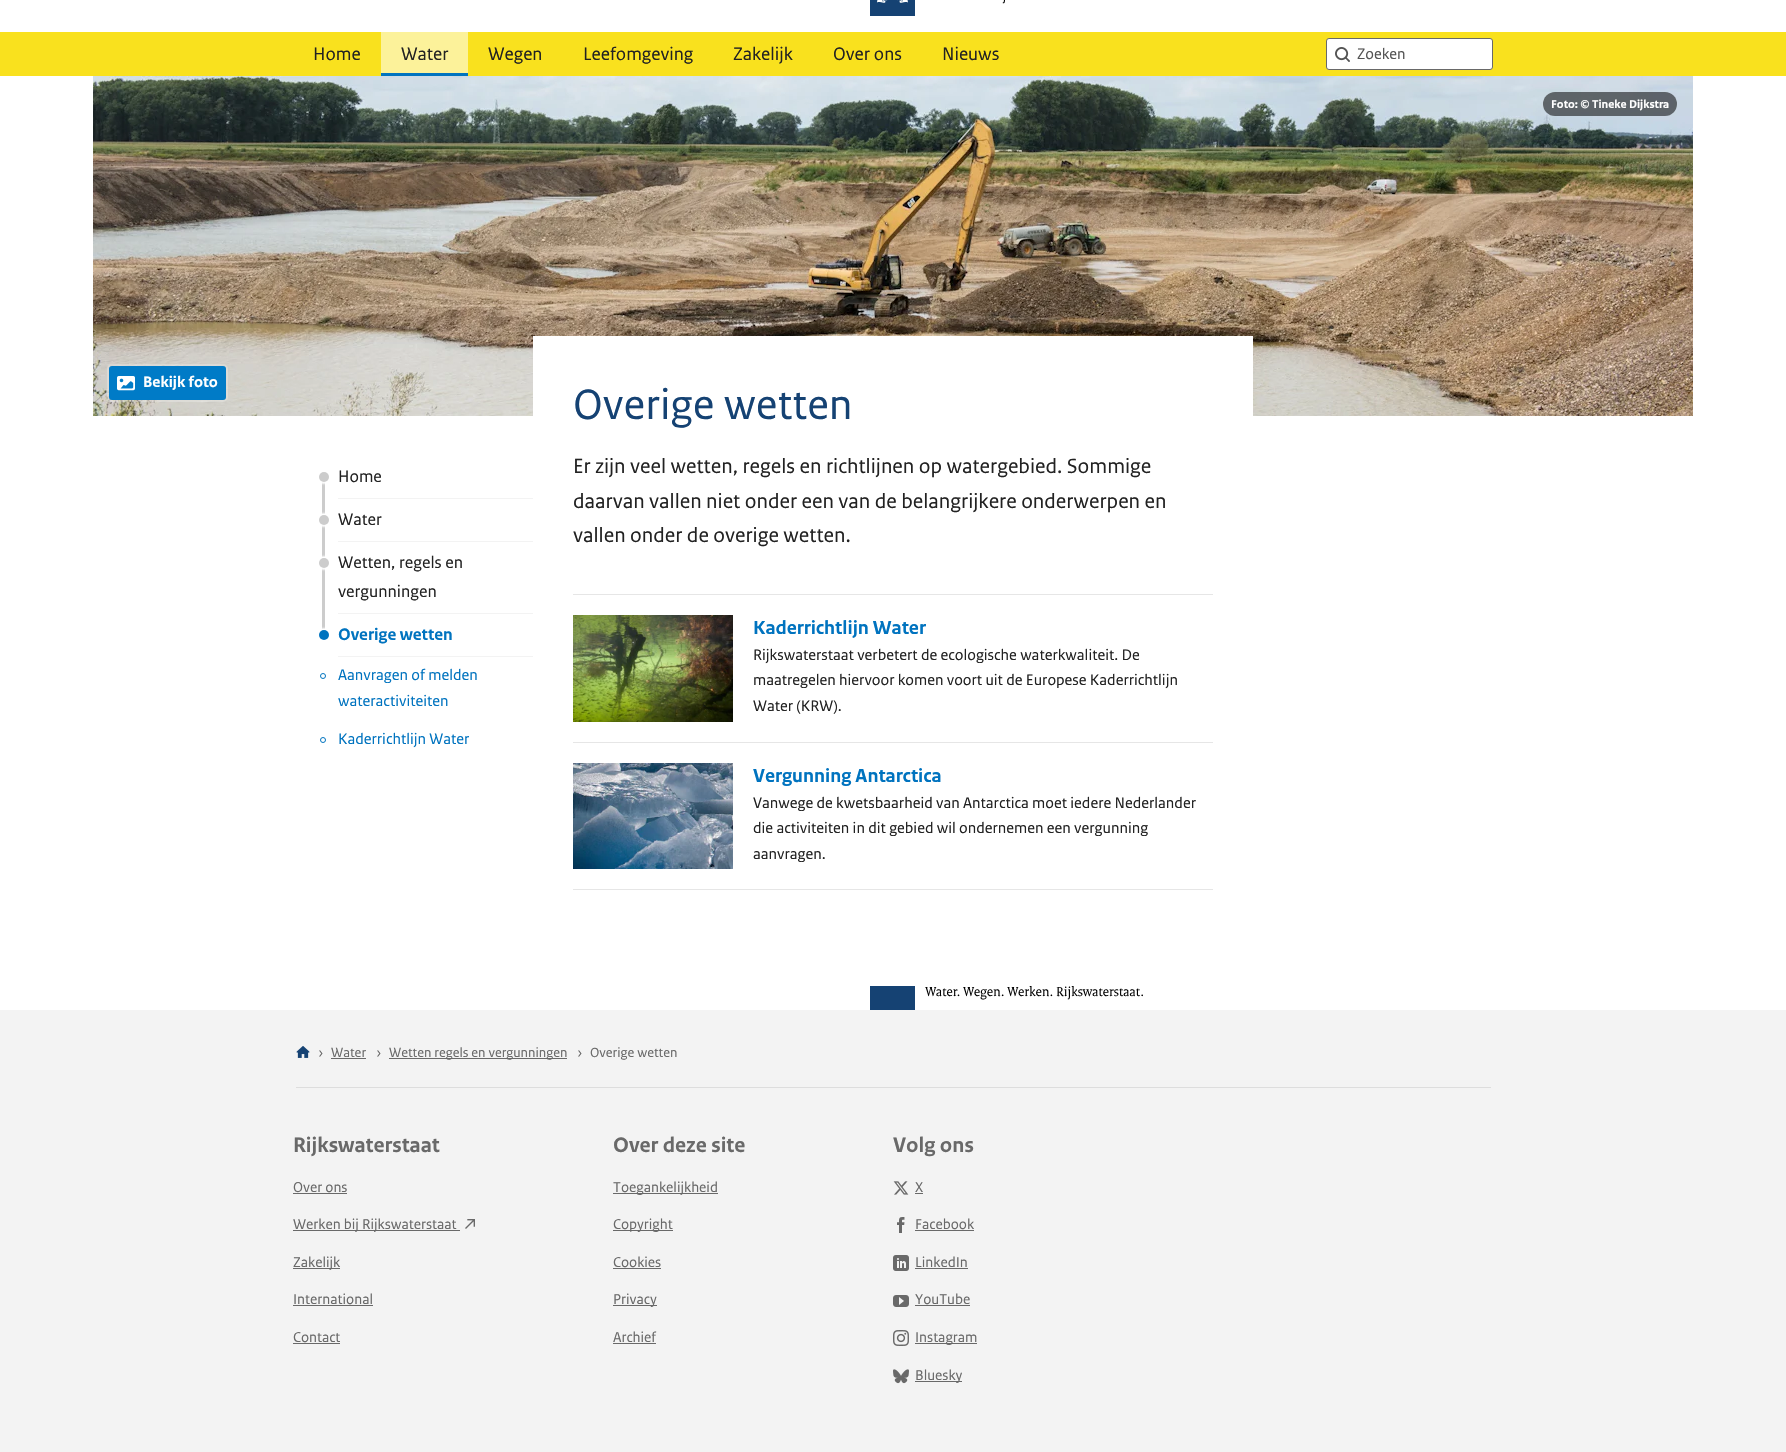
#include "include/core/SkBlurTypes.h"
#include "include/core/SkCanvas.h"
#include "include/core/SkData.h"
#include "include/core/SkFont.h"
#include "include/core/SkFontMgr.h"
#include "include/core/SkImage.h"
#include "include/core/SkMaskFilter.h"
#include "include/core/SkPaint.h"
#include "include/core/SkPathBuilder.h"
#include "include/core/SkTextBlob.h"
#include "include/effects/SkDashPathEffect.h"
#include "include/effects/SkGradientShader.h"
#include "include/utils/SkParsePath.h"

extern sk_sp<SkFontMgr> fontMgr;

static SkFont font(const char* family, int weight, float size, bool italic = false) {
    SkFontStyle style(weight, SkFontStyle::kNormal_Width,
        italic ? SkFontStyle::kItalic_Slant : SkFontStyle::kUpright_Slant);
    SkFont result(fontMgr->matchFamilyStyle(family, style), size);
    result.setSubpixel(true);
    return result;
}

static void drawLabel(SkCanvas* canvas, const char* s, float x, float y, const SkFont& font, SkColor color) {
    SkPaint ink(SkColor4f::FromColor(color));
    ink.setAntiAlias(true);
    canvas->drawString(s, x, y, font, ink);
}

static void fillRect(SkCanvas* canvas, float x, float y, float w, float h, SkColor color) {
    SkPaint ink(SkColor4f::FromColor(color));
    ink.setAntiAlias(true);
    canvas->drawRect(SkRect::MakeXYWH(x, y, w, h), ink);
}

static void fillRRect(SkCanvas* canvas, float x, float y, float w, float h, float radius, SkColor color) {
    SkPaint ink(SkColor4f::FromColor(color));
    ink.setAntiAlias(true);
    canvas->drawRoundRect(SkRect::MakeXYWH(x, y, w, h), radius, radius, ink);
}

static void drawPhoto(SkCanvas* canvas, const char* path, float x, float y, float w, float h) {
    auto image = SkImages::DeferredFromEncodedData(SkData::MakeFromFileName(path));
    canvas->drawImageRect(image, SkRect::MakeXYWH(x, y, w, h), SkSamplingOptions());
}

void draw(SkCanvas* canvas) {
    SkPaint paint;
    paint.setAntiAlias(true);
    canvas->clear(0xFFFFFFFF);
    fillRect(canvas, 0, 32, 1786, 44, 0xFFF9E11E);
    drawPhoto(canvas, "assets/img1.png", 870, 0, 135, 16);
    SkFont font1 = font("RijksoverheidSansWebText", 400, 19);
    drawLabel(canvas, "Home", 313, 60, font1, 0xFF222222);
    fillRect(canvas, 381, 32, 87, 41, 0xFFFCF29A);
    fillRect(canvas, 381, 73, 87, 3, 0xFF0073BF);
    drawLabel(canvas, "Water", 401, 60, font1, 0xFF222222);
    drawLabel(canvas, "Wegen", 488, 60, font1, 0xFF222222);
    drawLabel(canvas, "Leefomgeving", 583, 60, font1, 0xFF222222);
    drawLabel(canvas, "Zakelijk", 733, 60, font1, 0xFF222222);
    drawLabel(canvas, "Over ons", 833, 60, font1, 0xFF222222);
    drawLabel(canvas, "Nieuws", 942, 60, font1, 0xFF222222);
    paint.setColor(0xFFFFFFFF);
    canvas->drawRoundRect(SkRect::MakeXYWH(1326.5f, 38.5f, 166, 31), 2.5f, 2.5f, paint);
    paint.setStroke(true);
    paint.setStrokeWidth(1);
    paint.setColor(0xFF696969);
    canvas->drawRoundRect(SkRect::MakeXYWH(1326.5f, 38.5f, 166, 31), 2.5f, 2.5f, paint);
    drawPhoto(canvas, "assets/img2.png", 1335, 47, 15, 15);
    SkFont font2 = font("RijksoverheidSansWebText", 400, 16);
    drawLabel(canvas, "Zoeken", 1357, 59, font2, 0xFF535353);
    drawPhoto(canvas, "assets/img3.png", 93, 76, 1600, 340);
    fillRRect(canvas, 1543, 92, 134, 24, 12, 0x8A000000);
    SkFont font3 = font("RijksoverheidSansWebText", 700, 12);
    drawLabel(canvas, "Foto: © Tineke Dijkstra", 1551, 108, font3, 0xFFFFFFFF);
    paint.setStrokeWidth(2);
    paint.setColor(0x40FFFFFF);
    canvas->drawRoundRect(SkRect::MakeXYWH(108, 365, 119, 36), 4, 4, paint);
    fillRRect(canvas, 109, 366, 117, 34, 3, 0xFF007BC7);
    drawPhoto(canvas, "assets/img4.png", 117, 376, 18, 15);
    SkFont font4 = font("RijksoverheidSansWebText", 700, 16);
    drawLabel(canvas, "Bekijk foto", 143, 387, font4, 0xFFFFFFFF);
    fillRect(canvas, 322, 472, 3, 42, 0xFFCCCCCC);
    paint.setStroke(false);
    paint.setColor(0xFFFFFFFF);
    paint.setMaskFilter(SkMaskFilter::MakeBlur(kNormal_SkBlurStyle, 1));
    canvas->drawRoundRect(SkRect::MakeXYWH(317, 470, 14, 14), 7, 7, paint);
    paint.setMaskFilter(nullptr);
    paint.setColor(0xFFCCCCCC);
    canvas->drawCircle(324, 477, 5, paint);
    SkFont font5 = font("RijksoverheidSansWebText", 400, 17.5f);
    drawLabel(canvas, "Home", 338, 482, font5, 0xFF222222);
    fillRect(canvas, 338, 498, 195, 1, 0xFFF3F3F3);
    fillRect(canvas, 322, 515, 3, 42, 0xFFCCCCCC);
    paint.setColor(0xFFFFFFFF);
    paint.setMaskFilter(SkMaskFilter::MakeBlur(kNormal_SkBlurStyle, 1));
    canvas->drawRoundRect(SkRect::MakeXYWH(317, 513, 14, 14), 7, 7, paint);
    paint.setMaskFilter(nullptr);
    paint.setColor(0xFFCCCCCC);
    canvas->drawCircle(324, 520, 5, paint);
    drawLabel(canvas, "Water", 338, 525, font5, 0xFF222222);
    fillRect(canvas, 338, 541, 195, 1, 0xFFF3F3F3);
    fillRect(canvas, 322, 558, 3, 71, 0xFFCCCCCC);
    paint.setColor(0xFFFFFFFF);
    paint.setMaskFilter(SkMaskFilter::MakeBlur(kNormal_SkBlurStyle, 1));
    canvas->drawRoundRect(SkRect::MakeXYWH(317, 556, 14, 14), 7, 7, paint);
    paint.setMaskFilter(nullptr);
    paint.setColor(0xFFCCCCCC);
    canvas->drawCircle(324, 563, 5, paint);
    drawLabel(canvas, "Wetten, regels en", 338, 568, font5, 0xFF222222);
    drawLabel(canvas, "vergunningen", 338, 597, font5, 0xFF222222);
    fillRect(canvas, 338, 613, 195, 1, 0xFFF3F3F3);
    paint.setColor(0xFFFFFFFF);
    paint.setMaskFilter(SkMaskFilter::MakeBlur(kNormal_SkBlurStyle, 1));
    canvas->drawRoundRect(SkRect::MakeXYWH(317, 628, 14, 14), 7, 7, paint);
    paint.setMaskFilter(nullptr);
    paint.setColor(0xFF0073BF);
    canvas->drawCircle(324, 635, 5, paint);
    SkFont font6 = font("RijksoverheidSansWebText", 700, 17.5f);
    drawLabel(canvas, "Overige wetten", 338, 640, font6, 0xFF0073BF);
    fillRect(canvas, 338, 656, 195, 1, 0xFFF3F3F3);
    paint.setStroke(true);
    paint.setStrokeWidth(1);
    canvas->drawCircle(323, 676, 2.5f, paint);
    drawLabel(canvas, "Aanvragen of melden", 338, 680, font2, 0xFF0073BF);
    drawLabel(canvas, "wateractiviteiten", 338, 706, font2, 0xFF0073BF);
    canvas->drawCircle(323, 740, 2.5f, paint);
    drawLabel(canvas, "Kaderrichtlijn Water", 338, 744, font2, 0xFF0073BF);
    fillRect(canvas, 533, 336, 720, 80, 0xFFFFFFFF);
    SkFont font7 = font("RijksoverheidSansWebText", 400, 44.75f);
    drawLabel(canvas, "Overige wetten", 573, 419, font7, 0xFF154273);
    SkFont font8 = font("RijksoverheidSansWebText", 400, 21.6f);
    drawLabel(canvas, "Er zijn veel wetten, regels en richtlijnen op watergebied. Sommige", 573, 473, font8, 0xFF222222);
    drawLabel(canvas, "daarvan vallen niet onder een van de belangrijkere onderwerpen en", 573, 508, font8, 0xFF222222);
    drawLabel(canvas, "vallen onder de overige wetten.", 573, 542, font8, 0xFF222222);
    fillRect(canvas, 573, 594, 640, 1, 0xFFE6E6E6);
    fillRect(canvas, 573, 742, 640, 1, 0xFFE6E6E6);
    drawPhoto(canvas, "assets/img5.png", 573, 615, 160, 107);
    SkFont font9 = font("RijksoverheidSansWebText", 700, 20);
    drawLabel(canvas, "Kaderrichtlijn Water", 753, 634, font9, 0xFF0073BF);
    drawLabel(canvas, "Rijkswaterstaat verbetert de ecologische waterkwaliteit. De", 753, 660, font2, 0xFF222222);
    drawLabel(canvas, "maatregelen hiervoor komen voort uit de Europese Kaderrichtlijn", 753, 685, font2, 0xFF222222);
    drawLabel(canvas, "Water (KRW).", 753, 711, font2, 0xFF222222);
    fillRect(canvas, 573, 889, 640, 1, 0xFFE6E6E6);
    drawPhoto(canvas, "assets/img6.png", 573, 763, 160, 106);
    drawLabel(canvas, "Vergunning Antarctica", 753, 782, font9, 0xFF0073BF);
    drawLabel(canvas, "Vanwege de kwetsbaarheid van Antarctica moet iedere Nederlander", 753, 808, font2, 0xFF222222);
    drawLabel(canvas, "die activiteiten in dit gebied wil ondernemen een vergunning", 753, 833, font2, 0xFF222222);
    drawLabel(canvas, "aanvragen.", 753, 859, font2, 0xFF222222);
    fillRect(canvas, 0, 1010, 1786, 442, 0xFFF3F3F3);
    drawPhoto(canvas, "assets/img7.png", 870, 986, 273, 24);
    fillRect(canvas, 296, 1087, 1195, 1, 0xFFDDDDDD);
    drawPhoto(canvas, "assets/img8.png", 296, 1046, 14, 12);
    SkFont font10 = font("RijksoverheidSansWebText", 400, 14);
    drawLabel(canvas, "›", 318, 1057, font10, 0xFF696969);
    drawLabel(canvas, "Water", 331, 1057, font10, 0xFF696969);
    fillRect(canvas, 331, 1058, 35, 1, 0xFF696969);
    drawLabel(canvas, "›", 376, 1057, font10, 0xFF696969);
    fillRect(canvas, 389, 1058, 178, 1, 0xFF696969);
    drawLabel(canvas, "Wetten regels en vergunningen", 389, 1057, font10, 0xFF696969);
    drawLabel(canvas, "›", 577, 1057, font10, 0xFF696969);
    drawLabel(canvas, "Overige wetten", 590, 1057, font10, 0xFF696969);
    SkFont font11 = font("RijksoverheidSansWebText", 700, 22);
    drawLabel(canvas, "Rijkswaterstaat", 293, 1152, font11, 0xFF696969);
    SkFont font12 = font("RijksoverheidSansWebText", 400, 15);
    drawLabel(canvas, "Over ons", 293, 1192, font12, 0xFF696969);
    fillRect(canvas, 293, 1193, 54, 1, 0xFF696969);
    fillRect(canvas, 293, 1230, 167, 1, 0xFF696969);
    drawLabel(canvas, "Werken bij Rijkswaterstaat", 293, 1229, font12, 0xFF696969);
    drawPhoto(canvas, "assets/img9.png", 465, 1219, 10, 10);
    fillRect(canvas, 293, 1268, 47, 1, 0xFF696969);
    drawLabel(canvas, "Zakelijk", 293, 1267, font12, 0xFF696969);
    drawLabel(canvas, "International", 293, 1304, font12, 0xFF696969);
    fillRect(canvas, 293, 1305, 80, 1, 0xFF696969);
    drawLabel(canvas, "Contact", 293, 1342, font12, 0xFF696969);
    fillRect(canvas, 293, 1343, 47, 1, 0xFF696969);
    drawLabel(canvas, "Over deze site", 613, 1152, font11, 0xFF696969);
    fillRect(canvas, 613, 1193, 105, 1, 0xFF696969);
    drawLabel(canvas, "Toegankelijkheid", 613, 1192, font12, 0xFF696969);
    fillRect(canvas, 613, 1230, 60, 1, 0xFF696969);
    drawLabel(canvas, "Copyright", 613, 1229, font12, 0xFF696969);
    drawLabel(canvas, "Cookies", 613, 1267, font12, 0xFF696969);
    fillRect(canvas, 613, 1268, 48, 1, 0xFF696969);
    fillRect(canvas, 613, 1305, 44, 1, 0xFF696969);
    drawLabel(canvas, "Privacy", 613, 1304, font12, 0xFF696969);
    drawLabel(canvas, "Archief", 613, 1342, font12, 0xFF696969);
    fillRect(canvas, 613, 1343, 43, 1, 0xFF696969);
    drawLabel(canvas, "Volg ons", 893, 1152, font11, 0xFF696969);
    drawPhoto(canvas, "assets/img10.png", 893, 1181, 16, 14);
    drawLabel(canvas, "X", 915, 1192, font12, 0xFF696969);
    fillRect(canvas, 915, 1193, 8, 1, 0xFF696969);
    drawPhoto(canvas, "assets/img11.png", 897, 1217, 8, 16);
    drawLabel(canvas, "Facebook", 915, 1229, font12, 0xFF696969);
    fillRect(canvas, 915, 1230, 59, 1, 0xFF696969);
    drawPhoto(canvas, "assets/img12.png", 893, 1255, 16, 16);
    drawLabel(canvas, "LinkedIn", 915, 1267, font12, 0xFF696969);
    fillRect(canvas, 915, 1268, 53, 1, 0xFF696969);
    drawPhoto(canvas, "assets/img13.png", 893, 1295, 16, 12);
    drawLabel(canvas, "YouTube", 915, 1304, font12, 0xFF696969);
    fillRect(canvas, 915, 1305, 55, 1, 0xFF696969);
    drawPhoto(canvas, "assets/img14.png", 893, 1330, 16, 16);
    fillRect(canvas, 915, 1343, 62, 1, 0xFF696969);
    drawLabel(canvas, "Instagram", 915, 1342, font12, 0xFF696969);
    drawPhoto(canvas, "assets/img15.png", 893, 1369, 16, 15);
    fillRect(canvas, 915, 1381, 47, 1, 0xFF696969);
    drawLabel(canvas, "Bluesky", 915, 1380, font12, 0xFF696969);
}
